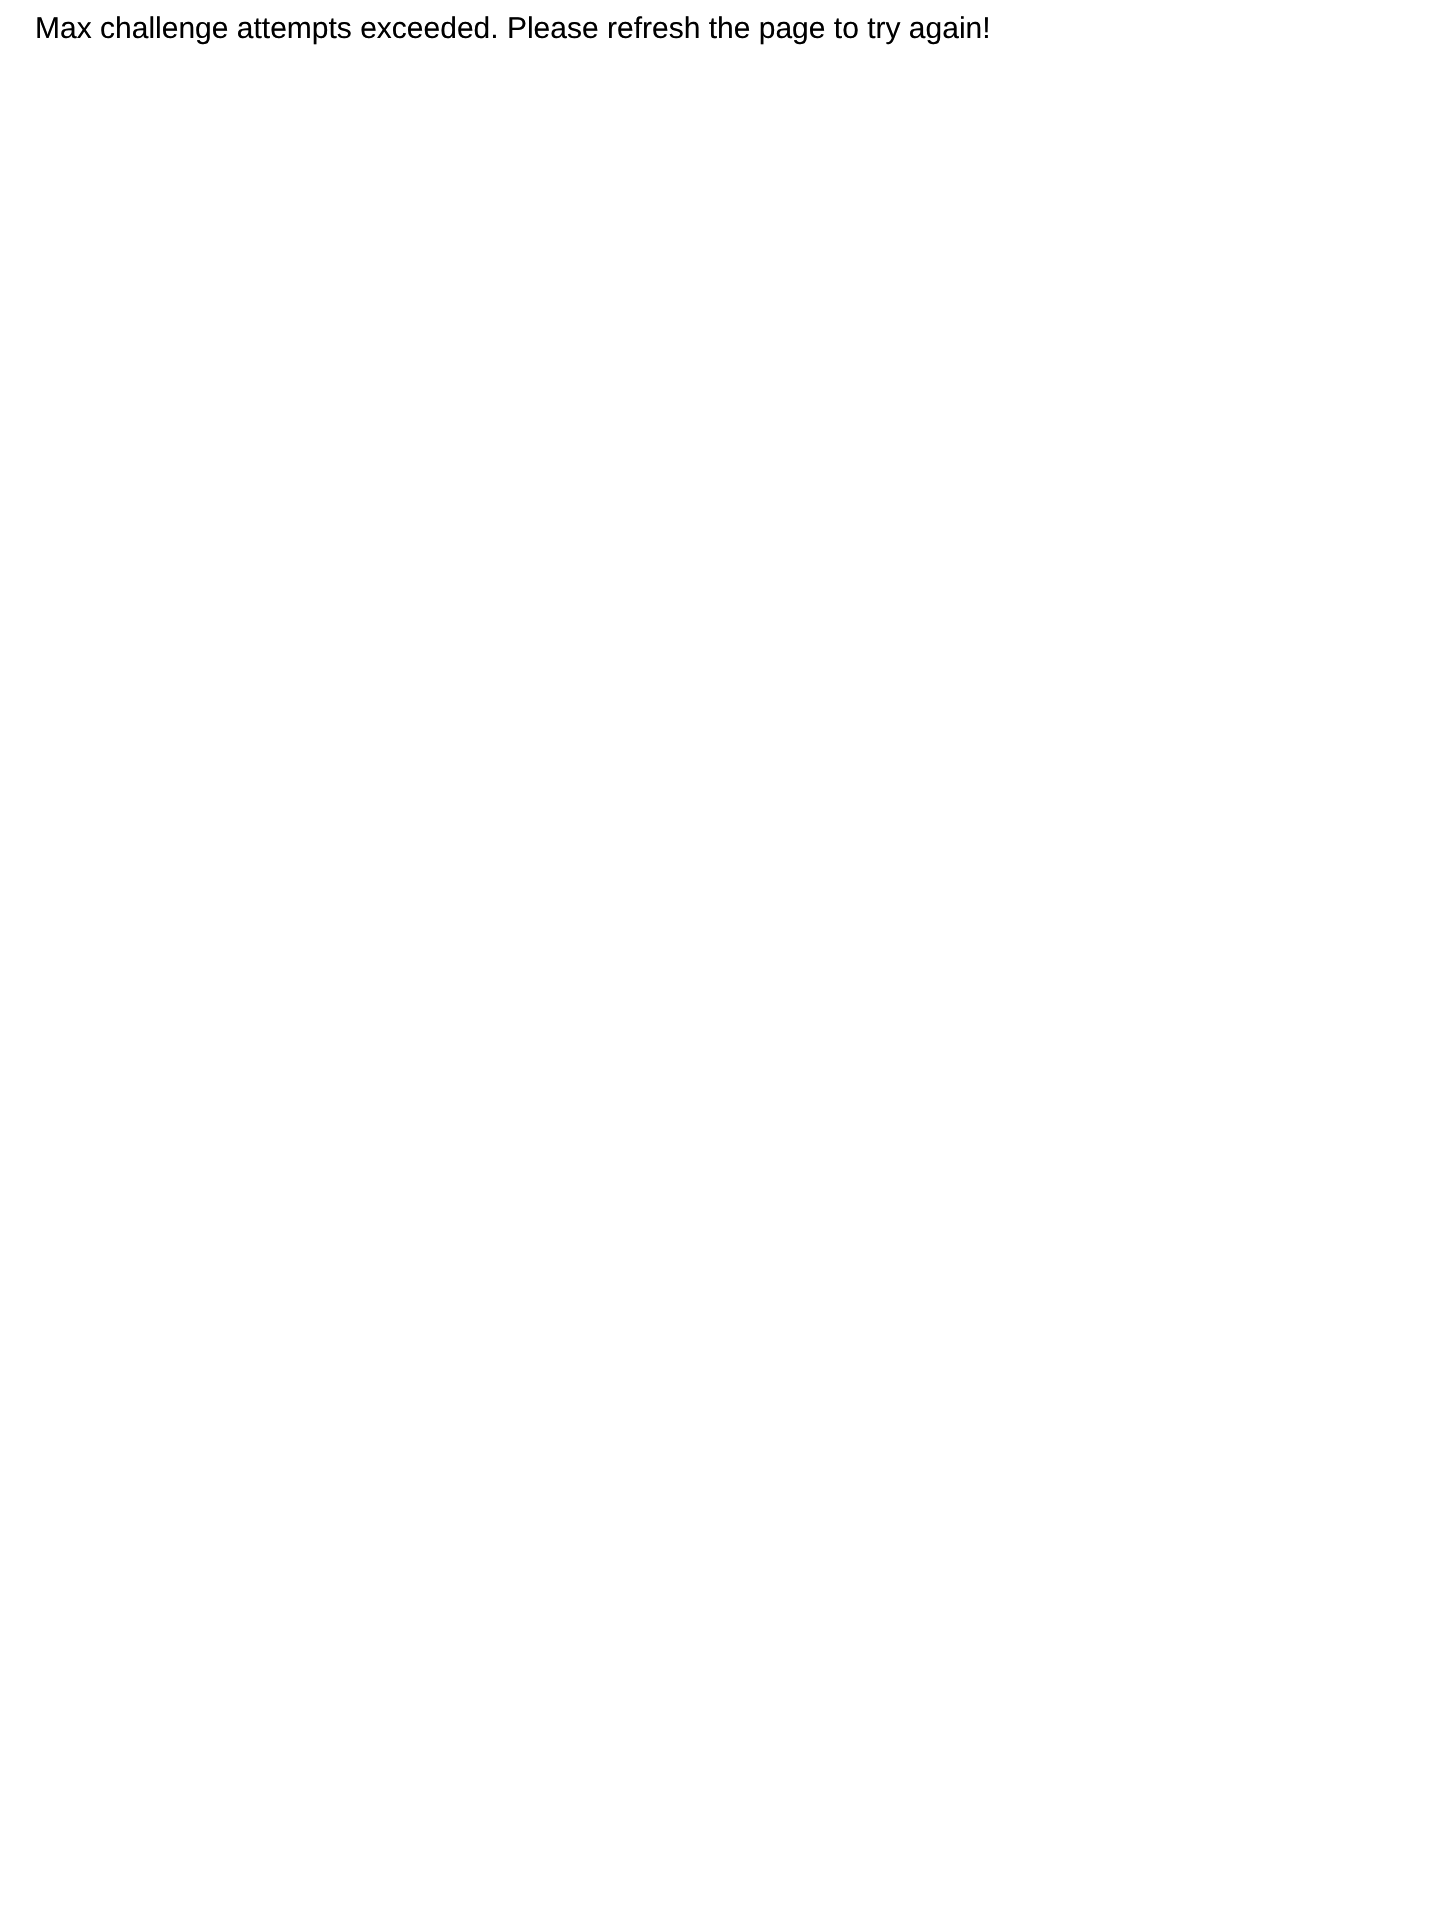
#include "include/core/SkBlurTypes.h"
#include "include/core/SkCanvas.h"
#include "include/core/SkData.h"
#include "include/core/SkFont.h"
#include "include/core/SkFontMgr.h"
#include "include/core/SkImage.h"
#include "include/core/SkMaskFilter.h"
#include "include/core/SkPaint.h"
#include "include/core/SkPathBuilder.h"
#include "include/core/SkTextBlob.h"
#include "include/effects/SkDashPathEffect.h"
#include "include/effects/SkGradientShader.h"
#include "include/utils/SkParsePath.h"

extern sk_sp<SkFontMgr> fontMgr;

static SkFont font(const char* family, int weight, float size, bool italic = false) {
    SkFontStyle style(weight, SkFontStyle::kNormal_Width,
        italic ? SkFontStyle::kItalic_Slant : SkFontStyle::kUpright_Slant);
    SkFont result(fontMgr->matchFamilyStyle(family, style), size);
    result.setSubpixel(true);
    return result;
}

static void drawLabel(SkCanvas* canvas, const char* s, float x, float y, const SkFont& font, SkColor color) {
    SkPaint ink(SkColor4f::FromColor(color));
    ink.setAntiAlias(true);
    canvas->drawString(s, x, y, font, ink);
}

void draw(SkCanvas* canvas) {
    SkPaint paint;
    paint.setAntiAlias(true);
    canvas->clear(0xFFFFFFFF);
    SkFont font1 = font("Liberation Sans", 400, 30);
    drawLabel(canvas, "Max challenge attempts exceeded. Please refresh the page to try again!", 35, 38, font1, 0xFF000000);
}
